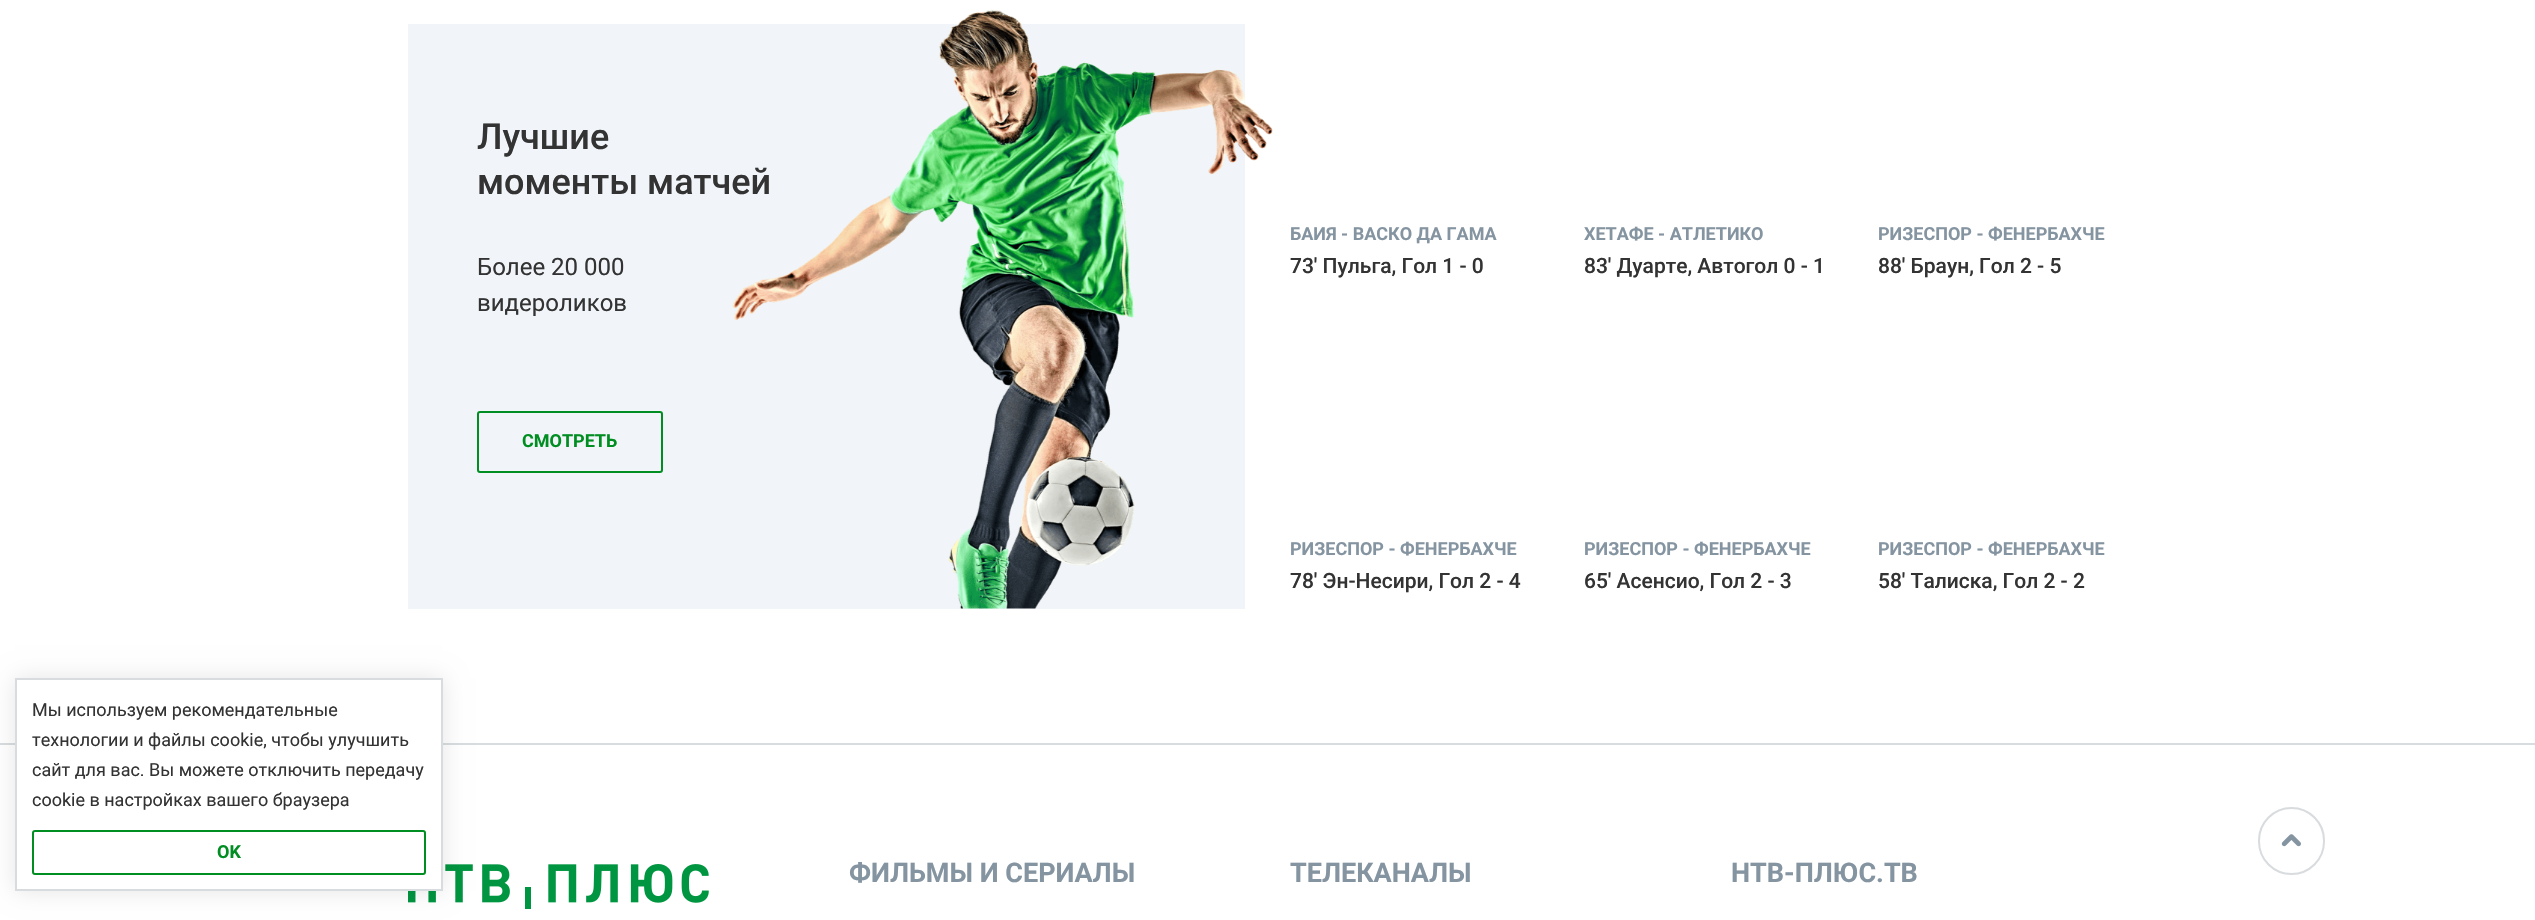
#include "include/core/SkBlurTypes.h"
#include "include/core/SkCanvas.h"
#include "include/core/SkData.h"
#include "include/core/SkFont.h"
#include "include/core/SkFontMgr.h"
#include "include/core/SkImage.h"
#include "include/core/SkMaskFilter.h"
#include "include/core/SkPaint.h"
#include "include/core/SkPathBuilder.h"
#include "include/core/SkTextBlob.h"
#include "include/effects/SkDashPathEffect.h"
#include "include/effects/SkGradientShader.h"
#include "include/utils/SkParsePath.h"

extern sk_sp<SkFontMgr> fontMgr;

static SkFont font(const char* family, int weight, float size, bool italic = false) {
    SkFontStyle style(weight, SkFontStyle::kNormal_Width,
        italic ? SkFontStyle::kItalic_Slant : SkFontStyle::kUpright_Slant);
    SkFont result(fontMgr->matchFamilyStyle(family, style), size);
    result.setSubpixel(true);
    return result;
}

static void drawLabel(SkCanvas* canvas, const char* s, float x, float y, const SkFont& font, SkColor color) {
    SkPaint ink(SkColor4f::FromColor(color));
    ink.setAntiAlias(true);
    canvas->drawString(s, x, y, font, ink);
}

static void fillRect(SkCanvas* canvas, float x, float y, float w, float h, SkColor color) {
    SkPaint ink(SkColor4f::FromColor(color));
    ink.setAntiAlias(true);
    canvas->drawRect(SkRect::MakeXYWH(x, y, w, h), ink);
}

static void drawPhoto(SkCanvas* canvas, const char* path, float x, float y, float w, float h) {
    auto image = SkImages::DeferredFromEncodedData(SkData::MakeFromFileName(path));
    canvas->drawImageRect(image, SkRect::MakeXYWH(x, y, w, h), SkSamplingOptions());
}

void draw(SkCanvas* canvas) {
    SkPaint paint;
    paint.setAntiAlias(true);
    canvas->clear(0xFFFFFFFF);
    fillRect(canvas, 408, 24, 837, 585, 0xFFF1F5F9);
    SkFont font1 = font("Roboto", 500, 36);
    drawLabel(canvas, "Лучшие", 477, 149, font1, 0xFF333333);
    drawPhoto(canvas, "assets/img1.png", 732, 9, 541, 600);
    drawLabel(canvas, "моменты матчей", 477, 194, font1, 0xFF333333);
    SkFont font2 = font("Roboto", 400, 24);
    drawLabel(canvas, "Более 20 000", 477, 275, font2, 0xFF333333);
    drawLabel(canvas, "видероликов", 477, 311, font2, 0xFF333333);
    paint.setStroke(true);
    paint.setStrokeWidth(2);
    paint.setColor(0xFF008D21);
    canvas->drawRoundRect(SkRect::MakeXYWH(478, 412, 184, 60), 2, 2, paint);
    SkFont font3 = font("Roboto", 700, 18);
    drawLabel(canvas, "СМОТРЕТЬ", 522, 447, font3, 0xFF008D21);
    drawLabel(canvas, "БАИЯ - ВАСКО ДА ГАМА", 1290, 240, font3, 0xFF8594A1);
    SkFont font4 = font("Roboto", 500, 21);
    drawLabel(canvas, "73' Пульга, Гол 1 - 0", 1290, 273, font4, 0xFF333333);
    drawLabel(canvas, "ХЕТАФЕ - АТЛЕТИКО", 1584, 240, font3, 0xFF8594A1);
    drawLabel(canvas, "83' Дуарте, Автогол 0 - 1", 1584, 273, font4, 0xFF333333);
    drawLabel(canvas, "РИЗЕСПОР - ФЕНЕРБАХЧЕ", 1878, 240, font3, 0xFF8594A1);
    drawLabel(canvas, "88' Браун, Гол 2 - 5", 1878, 273, font4, 0xFF333333);
    drawLabel(canvas, "РИЗЕСПОР - ФЕНЕРБАХЧЕ", 1290, 555, font3, 0xFF8594A1);
    drawLabel(canvas, "78' Эн-Несири, Гол 2 - 4", 1290, 588, font4, 0xFF333333);
    drawLabel(canvas, "РИЗЕСПОР - ФЕНЕРБАХЧЕ", 1584, 555, font3, 0xFF8594A1);
    drawLabel(canvas, "65' Асенсио, Гол 2 - 3", 1584, 588, font4, 0xFF333333);
    drawLabel(canvas, "РИЗЕСПОР - ФЕНЕРБАХЧЕ", 1878, 555, font3, 0xFF8594A1);
    drawLabel(canvas, "58' Талиска, Гол 2 - 2", 1878, 588, font4, 0xFF333333);
    fillRect(canvas, 0, 743, 2535, 2, 0xFFD8DCDE);
    drawPhoto(canvas, "assets/img2.png", 408, 864, 301, 45);
    paint.setStroke(false);
    paint.setColor(0x1A000000);
    paint.setMaskFilter(SkMaskFilter::MakeBlur(kNormal_SkBlurStyle, 11));
    canvas->drawRect(SkRect::MakeXYWH(15, 678, 428, 213), paint);
    paint.setMaskFilter(nullptr);
    paint.setColor(0xFFFFFFFF);
    canvas->drawRect(SkRect::MakeXYWH(16, 679, 426, 211), paint);
    paint.setStroke(true);
    paint.setColor(0xFFD8DCDE);
    canvas->drawRect(SkRect::MakeXYWH(16, 679, 426, 211), paint);
    SkFont font5 = font("Roboto", 400, 18);
    drawLabel(canvas, "Мы используем рекомендательные", 32, 716, font5, 0xFF333333);
    drawLabel(canvas, "технологии и файлы cookie, чтобы улучшить", 32, 746, font5, 0xFF333333);
    drawLabel(canvas, "сайт для вас. Вы можете отключить передачу", 32, 776, font5, 0xFF333333);
    drawLabel(canvas, "cookie в настройках вашего браузера", 32, 806, font5, 0xFF333333);
    paint.setColor(0xFF008D21);
    canvas->drawRoundRect(SkRect::MakeXYWH(33, 831, 392, 43), 2, 2, paint);
    drawLabel(canvas, "OK", 217, 858, font3, 0xFF008D21);
    SkFont font6 = font("Roboto", 700, 27);
    drawLabel(canvas, "ФИЛЬМЫ И СЕРИАЛЫ", 849, 882, font6, 0xFF8594A1);
    drawLabel(canvas, "ТЕЛЕКАНАЛЫ", 1290, 882, font6, 0xFF8594A1);
    drawLabel(canvas, "НТВ-ПЛЮС.ТВ", 1731, 882, font6, 0xFF8594A1);
    paint.setColor(0xFFD8DCDE);
    canvas->drawRoundRect(SkRect::MakeXYWH(2259, 808, 65, 66), 32.5f, 32.5f, paint);
    drawPhoto(canvas, "assets/img3.png", 2281, 834, 20, 13);
}
